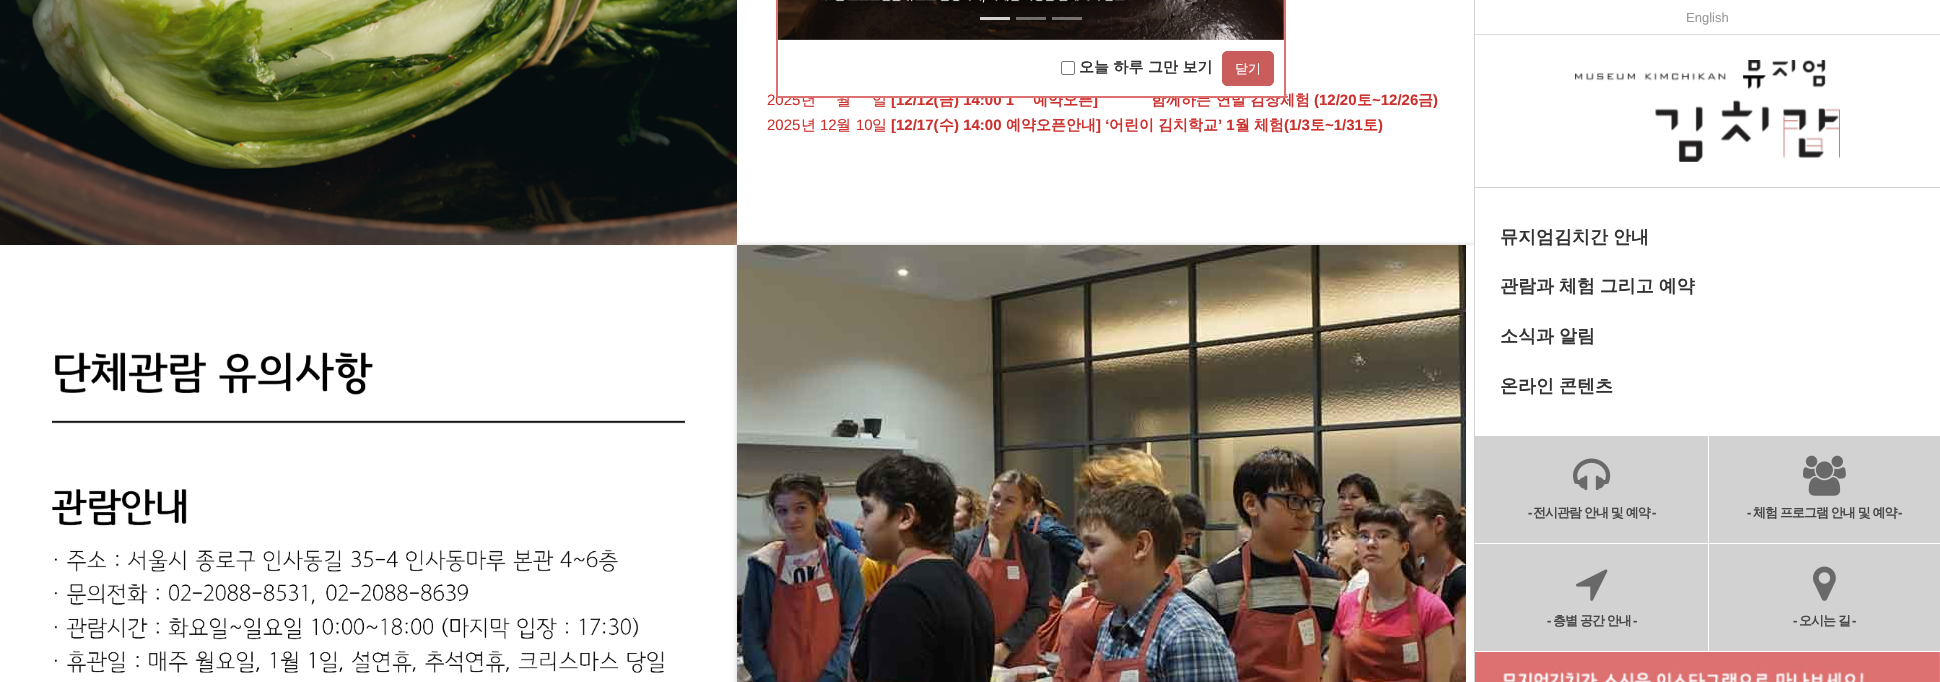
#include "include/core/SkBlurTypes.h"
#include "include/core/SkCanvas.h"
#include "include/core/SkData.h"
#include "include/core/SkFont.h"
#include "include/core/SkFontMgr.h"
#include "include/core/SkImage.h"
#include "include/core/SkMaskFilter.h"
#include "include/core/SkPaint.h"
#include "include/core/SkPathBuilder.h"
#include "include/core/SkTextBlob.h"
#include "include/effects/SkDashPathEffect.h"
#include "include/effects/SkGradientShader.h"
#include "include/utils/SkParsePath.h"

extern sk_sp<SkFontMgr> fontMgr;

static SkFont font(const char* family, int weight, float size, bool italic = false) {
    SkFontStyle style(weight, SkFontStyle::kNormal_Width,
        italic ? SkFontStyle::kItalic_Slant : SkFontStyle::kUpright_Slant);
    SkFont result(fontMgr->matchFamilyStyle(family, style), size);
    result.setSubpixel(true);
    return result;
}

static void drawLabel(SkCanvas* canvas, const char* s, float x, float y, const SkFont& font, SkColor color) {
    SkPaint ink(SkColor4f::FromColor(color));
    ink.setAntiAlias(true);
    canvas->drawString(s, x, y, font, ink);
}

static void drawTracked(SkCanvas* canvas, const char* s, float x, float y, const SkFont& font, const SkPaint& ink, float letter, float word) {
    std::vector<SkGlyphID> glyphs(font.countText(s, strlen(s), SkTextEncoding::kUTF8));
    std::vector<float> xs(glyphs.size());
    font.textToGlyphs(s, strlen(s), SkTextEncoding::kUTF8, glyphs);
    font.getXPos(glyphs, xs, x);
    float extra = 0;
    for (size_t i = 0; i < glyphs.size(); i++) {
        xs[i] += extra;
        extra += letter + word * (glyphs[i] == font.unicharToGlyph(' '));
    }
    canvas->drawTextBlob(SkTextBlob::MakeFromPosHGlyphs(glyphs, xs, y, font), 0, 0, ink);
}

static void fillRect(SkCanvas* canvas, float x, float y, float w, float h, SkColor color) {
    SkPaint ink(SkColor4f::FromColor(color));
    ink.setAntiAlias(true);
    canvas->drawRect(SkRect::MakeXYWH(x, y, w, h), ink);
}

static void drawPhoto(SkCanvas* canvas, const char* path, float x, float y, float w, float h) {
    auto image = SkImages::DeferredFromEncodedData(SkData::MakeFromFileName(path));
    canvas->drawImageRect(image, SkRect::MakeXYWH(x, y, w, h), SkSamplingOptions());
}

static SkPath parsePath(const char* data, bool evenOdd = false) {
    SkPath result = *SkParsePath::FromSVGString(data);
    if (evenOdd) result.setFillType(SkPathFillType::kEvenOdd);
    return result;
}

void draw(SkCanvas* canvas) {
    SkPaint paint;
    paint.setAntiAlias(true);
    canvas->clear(0xFFFFFFFF);
    drawPhoto(canvas, "assets/img1.png", 778, 0, 506, 40);
    fillRect(canvas, 980, 17, 30, 3, 0xFFD2D2D2);
    fillRect(canvas, 1016, 17, 30, 3, 0x80D2D2D2);
    fillRect(canvas, 1052, 17, 30, 3, 0x80D2D2D2);
    SkFont font1 = font("Liberation Sans", 400, 15);
    drawLabel(canvas, "2025", 767, 105, font1, 0xFFCC312E);
    SkFont font2 = font("WenQuanYi Zen Hei", 500, 15);
    drawLabel(canvas, "년", 801, 105, font2, 0xFFCC312E);
    drawLabel(canvas, "월", 836, 105, font2, 0xFFCC312E);
    drawLabel(canvas, "일", 872, 105, font2, 0xFFCC312E);
    SkFont font3 = font("Liberation Sans", 700, 15);
    drawLabel(canvas, "[12/12(", 891, 105, font3, 0xFFCC312E);
    SkFont font4 = font("WenQuanYi Zen Hei", 700, 15);
    drawLabel(canvas, "금", 939, 105, font4, 0xFFCC312E);
    drawLabel(canvas, ") 14:00 1", 954, 105, font3, 0xFFCC312E);
    drawLabel(canvas, "예약오픈", 1033, 105, font4, 0xFFCC312E);
    drawLabel(canvas, "]", 1093, 105, font3, 0xFFCC312E);
    drawLabel(canvas, "함께하는", 1151, 105, font4, 0xFFCC312E);
    drawLabel(canvas, "연말", 1216, 105, font4, 0xFFCC312E);
    drawLabel(canvas, "김장체험", 1250, 105, font4, 0xFFCC312E);
    fillRect(canvas, 778, 93, 506, 3, 0xFFFFFFFF);
    fillRect(canvas, 1284, 0, 2, 98, 0xFFDD7171);
    fillRect(canvas, 776, 96, 510, 2, 0xFFDD7171);
    fillRect(canvas, 776, 0, 2, 98, 0xFFDD7171);
    paint.setStroke(true);
    paint.setStrokeWidth(1);
    paint.setColor(0xFF767676);
    canvas->drawRoundRect(SkRect::MakeXYWH(1061.5f, 61.5f, 13, 13), 1.5f, 1.5f, paint);
    drawLabel(canvas, "오늘 하루 그만 보기", 1079, 72, font4, 0xFF333333);
    paint.setStroke(false);
    paint.setColor(0xFFC95D5B);
    canvas->drawRoundRect(SkRect::MakeXYWH(1222.5f, 51.5f, 51, 34), 4.5f, 4.5f, paint);
    paint.setStroke(true);
    canvas->drawRoundRect(SkRect::MakeXYWH(1222.5f, 51.5f, 51, 34), 4.5f, 4.5f, paint);
    SkFont font5 = font("WenQuanYi Zen Hei", 500, 13);
    drawLabel(canvas, "닫기", 1235, 73, font5, 0xFFFFFFFF);
    drawPhoto(canvas, "assets/img8.png", 0, 0, 737, 245);
    canvas->save();
    canvas->clipPath(parsePath("M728 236H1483V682H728ZM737 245H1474V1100H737Z", true), true);
    paint.setStroke(false);
    paint.setColor(0xFFCCCCCC);
    paint.setMaskFilter(SkMaskFilter::MakeBlur(kNormal_SkBlurStyle, 2.5f));
    canvas->drawRect(SkRect::MakeXYWH(737, 245, 737, 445), paint);
    paint.setMaskFilter(nullptr);
    canvas->restore();
    fillRect(canvas, 1474, 0, 1, 682, 0xFFD2D2D2);
    fillRect(canvas, 1475, 34, 465, 1, 0xFFDEDEDE);
    SkFont font6 = font("Liberation Sans", 400, 13);
    drawLabel(canvas, "English", 1686, 22, font6, 0xFF999999);
    fillRect(canvas, 1475, 187, 465, 1, 0xFFD2D2D2);
    drawPhoto(canvas, "assets/img2.png", 1575, 60, 265, 102);
    fillRect(canvas, 1475, 243, 3, 193, 0xFFFFFFFF);
    SkFont font7 = font("WenQuanYi Zen Hei", 700, 18);
    paint.setColor(0xFF333333);
    drawTracked(canvas, "뮤지엄김치간 안내", 1500, 243, font7, paint, 0, -0.5f);
    drawTracked(canvas, "관람과 체험 그리고 예약", 1500, 292, font7, paint, 0, -0.5f);
    drawTracked(canvas, "소식과 알림", 1500, 342, font7, paint, 0, -0.5f);
    drawTracked(canvas, "온라인 콘텐츠", 1500, 392, font7, paint, 0, -0.5f);
    fillRect(canvas, 1475, 436, 233, 107, 0xFFD2D2D2);
    fillRect(canvas, 1475, 543, 3, 1, 0xFFFFFFFF);
    drawPhoto(canvas, "assets/img3.png", 1573, 458, 38, 32);
    SkFont font8 = font("Liberation Sans", 700, 13);
    paint.setColor(0xFF474747);
    drawTracked(canvas, "-", 1528, 517, font8, paint, -1, 0);
    SkFont font9 = font("WenQuanYi Zen Hei", 700, 13);
    drawTracked(canvas, "전시관람 안내 및 예약", 1533, 517, font9, paint, -1, 0);
    drawTracked(canvas, "-", 1652, 517, font8, paint, -1, 0);
    fillRect(canvas, 1709, 436, 231, 107, 0xFFD2D2D2);
    drawPhoto(canvas, "assets/img4.png", 1803, 455, 43, 41);
    drawTracked(canvas, "-", 1747, 517, font8, paint, -1, 0);
    drawTracked(canvas, "체험 프로그램 안내 및 예약", 1753, 517, font9, paint, -1, 0);
    drawTracked(canvas, "-", 1898, 517, font8, paint, -1, 0);
    fillRect(canvas, 1475, 544, 233, 107, 0xFFD2D2D2);
    fillRect(canvas, 1475, 651, 3, 1, 0xFFFFFFFF);
    drawPhoto(canvas, "assets/img5.png", 1576, 569, 32, 32);
    drawTracked(canvas, "-", 1547, 625, font8, paint, -1, 0);
    drawTracked(canvas, "층별 공간 안내", 1553, 625, font9, paint, -1, 0);
    drawTracked(canvas, "-", 1633, 625, font8, paint, -1, 0);
    fillRect(canvas, 1709, 544, 231, 107, 0xFFD2D2D2);
    drawPhoto(canvas, "assets/img6.png", 1813, 566, 23, 35);
    drawTracked(canvas, "-", 1793, 625, font8, paint, -1, 0);
    drawTracked(canvas, "오시는 길", 1799, 625, font9, paint, -1, 0);
    drawTracked(canvas, "-", 1852, 625, font8, paint, -1, 0);
    drawPhoto(canvas, "assets/img7.png", 1475, 652, 465, 30);
    drawLabel(canvas, "(12/20", 1314, 105, font3, 0xFFCC312E);
    drawLabel(canvas, "토", 1357, 105, font4, 0xFFCC312E);
    drawLabel(canvas, "~12/26", 1372, 105, font3, 0xFFCC312E);
    drawLabel(canvas, "금", 1418, 105, font4, 0xFFCC312E);
    drawLabel(canvas, ")", 1433, 105, font3, 0xFFCC312E);
    drawLabel(canvas, "2025", 767, 130, font1, 0xFFCC312E);
    drawLabel(canvas, "년", 801, 130, font2, 0xFFCC312E);
    drawLabel(canvas, "12", 820, 130, font1, 0xFFCC312E);
    drawLabel(canvas, "월", 836, 130, font2, 0xFFCC312E);
    drawLabel(canvas, "10", 856, 130, font1, 0xFFCC312E);
    drawLabel(canvas, "일", 872, 130, font2, 0xFFCC312E);
    drawLabel(canvas, "[12/17(", 891, 130, font3, 0xFFCC312E);
    drawLabel(canvas, "수", 939, 130, font4, 0xFFCC312E);
    drawLabel(canvas, ") 14:00", 954, 130, font3, 0xFFCC312E);
    drawLabel(canvas, "예약오픈안내", 1006, 130, font4, 0xFFCC312E);
    drawLabel(canvas, "] ‘", 1096, 130, font3, 0xFFCC312E);
    drawLabel(canvas, "어린이", 1109, 130, font4, 0xFFCC312E);
    drawLabel(canvas, "김치학교", 1158, 130, font4, 0xFFCC312E);
    drawLabel(canvas, "’ 1", 1218, 130, font3, 0xFFCC312E);
    drawLabel(canvas, "월", 1235, 130, font4, 0xFFCC312E);
    drawLabel(canvas, "체험", 1254, 130, font4, 0xFFCC312E);
    drawLabel(canvas, "(1/3", 1284, 130, font3, 0xFFCC312E);
    drawLabel(canvas, "토", 1310, 130, font4, 0xFFCC312E);
    drawLabel(canvas, "~1/31", 1325, 130, font3, 0xFFCC312E);
    drawLabel(canvas, "토", 1363, 130, font4, 0xFFCC312E);
    drawLabel(canvas, ")", 1378, 130, font3, 0xFFCC312E);
    drawPhoto(canvas, "assets/img9.png", 52, 352, 633, 321);
    drawPhoto(canvas, "assets/img10.png", 737, 245, 729, 437);
}
